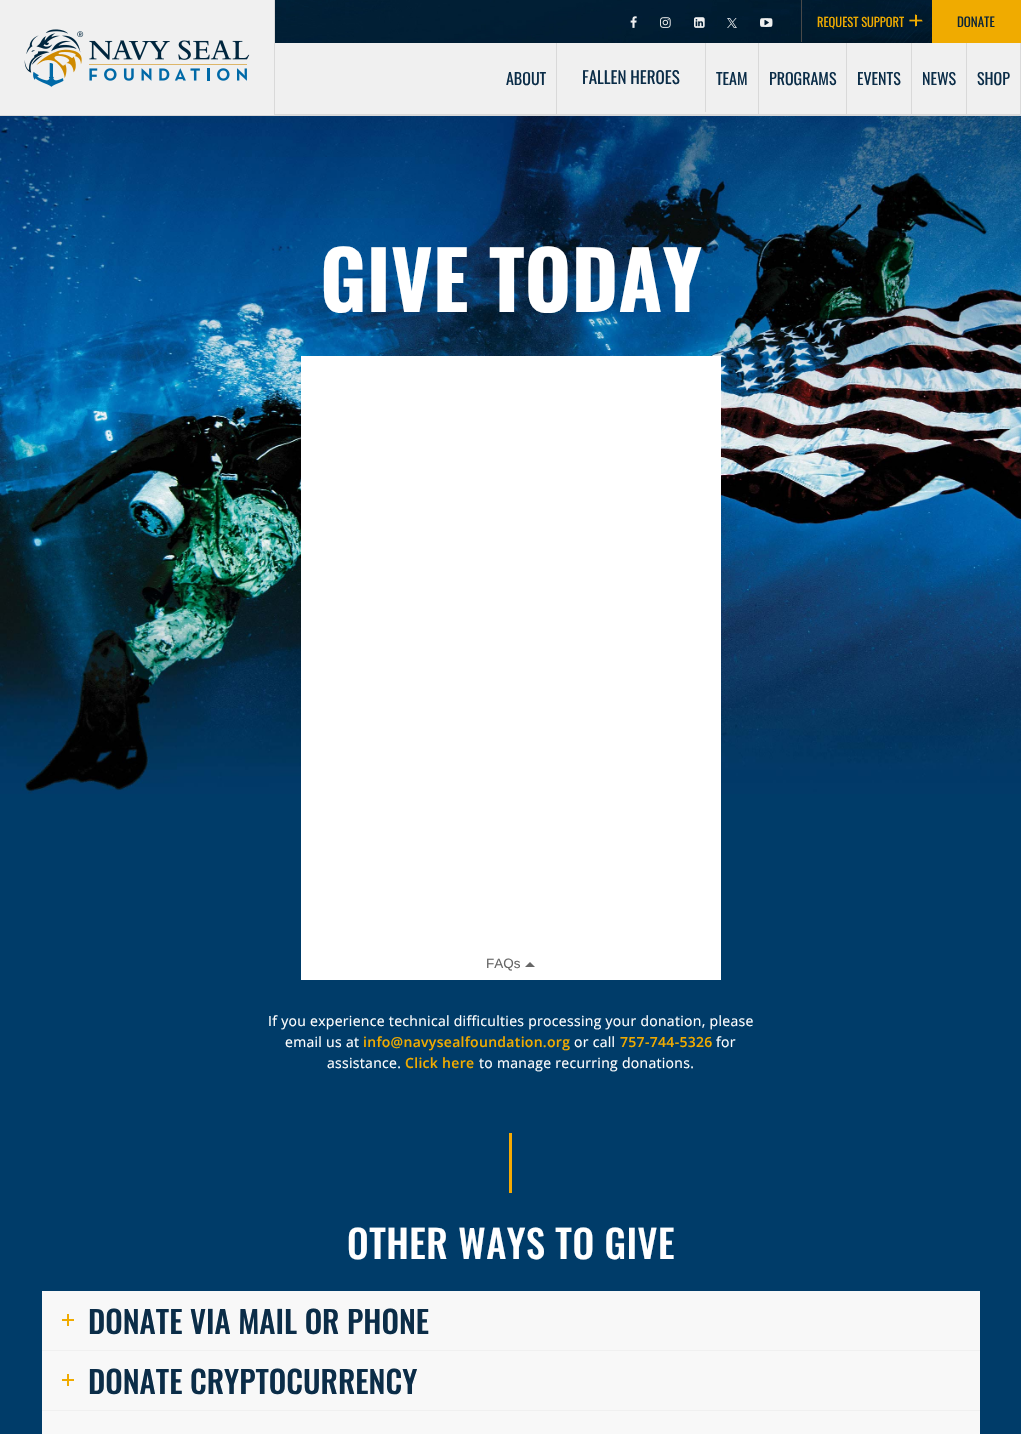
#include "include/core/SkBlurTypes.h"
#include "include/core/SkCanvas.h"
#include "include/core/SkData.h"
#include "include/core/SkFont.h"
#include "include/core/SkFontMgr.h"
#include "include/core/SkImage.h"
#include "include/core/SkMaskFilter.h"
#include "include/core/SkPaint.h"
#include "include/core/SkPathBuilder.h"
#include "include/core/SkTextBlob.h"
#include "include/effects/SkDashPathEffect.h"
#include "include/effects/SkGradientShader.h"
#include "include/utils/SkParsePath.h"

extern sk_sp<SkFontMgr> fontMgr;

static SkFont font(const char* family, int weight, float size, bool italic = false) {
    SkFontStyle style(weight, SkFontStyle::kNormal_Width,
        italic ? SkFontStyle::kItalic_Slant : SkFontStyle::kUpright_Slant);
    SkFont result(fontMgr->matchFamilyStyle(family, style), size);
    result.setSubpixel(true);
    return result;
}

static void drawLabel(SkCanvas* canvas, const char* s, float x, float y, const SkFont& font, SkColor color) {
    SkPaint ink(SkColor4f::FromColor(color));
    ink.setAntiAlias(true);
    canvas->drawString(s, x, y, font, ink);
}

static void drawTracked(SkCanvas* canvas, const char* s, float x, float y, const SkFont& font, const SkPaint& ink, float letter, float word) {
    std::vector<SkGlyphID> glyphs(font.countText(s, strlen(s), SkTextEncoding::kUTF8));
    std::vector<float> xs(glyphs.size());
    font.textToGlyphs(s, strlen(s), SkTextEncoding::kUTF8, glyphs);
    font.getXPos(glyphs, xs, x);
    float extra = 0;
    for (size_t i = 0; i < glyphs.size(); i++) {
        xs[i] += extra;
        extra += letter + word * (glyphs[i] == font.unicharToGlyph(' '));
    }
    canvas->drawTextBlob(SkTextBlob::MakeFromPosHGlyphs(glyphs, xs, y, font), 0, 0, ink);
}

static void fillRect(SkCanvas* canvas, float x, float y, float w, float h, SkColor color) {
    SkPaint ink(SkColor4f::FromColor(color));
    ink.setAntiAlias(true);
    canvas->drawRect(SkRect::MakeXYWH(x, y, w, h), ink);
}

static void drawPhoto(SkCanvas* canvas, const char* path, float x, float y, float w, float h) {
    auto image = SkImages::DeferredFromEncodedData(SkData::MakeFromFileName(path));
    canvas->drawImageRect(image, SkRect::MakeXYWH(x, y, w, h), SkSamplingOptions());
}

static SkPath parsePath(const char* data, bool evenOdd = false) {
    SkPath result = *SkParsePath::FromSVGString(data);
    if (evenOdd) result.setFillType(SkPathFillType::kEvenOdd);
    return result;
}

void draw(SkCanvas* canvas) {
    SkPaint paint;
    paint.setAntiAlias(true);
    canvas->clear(0xFFFFFFFF);
    drawPhoto(canvas, "assets/img1.png", 275, 0, 657, 43);
    drawPhoto(canvas, "assets/img2.png", 630, 16, 7, 12);
    drawPhoto(canvas, "assets/img3.png", 660, 17, 11, 11);
    drawPhoto(canvas, "assets/img4.png", 694, 17, 11, 11);
    drawPhoto(canvas, "assets/img5.png", 727, 18, 10, 10);
    drawPhoto(canvas, "assets/img6.png", 760, 18, 13, 9);
    fillRect(canvas, 801, 0, 1, 42, 0xFF494949);
    SkFont font1 = font("Oswald", 400, 12.5f);
    drawLabel(canvas, "REQUEST SUPPORT", 817, 27, font1, 0xFFF0AB00);
    drawPhoto(canvas, "assets/img7.png", 909, 14, 14, 13);
    fillRect(canvas, 932, 0, 89, 43, 0xFFF0AB00);
    SkFont font2 = font("Oswald", 400, 13);
    drawLabel(canvas, "DONATE", 957, 27, font2, 0xFF0A2438);
    fillRect(canvas, 275, 43, 745, 71, 0xFFF0F0F0);
    fillRect(canvas, 0, 114, 1021, 2, 0xFFD9D9D9);
    fillRect(canvas, 0, 0, 274, 115, 0xFFF0F0F0);
    fillRect(canvas, 274, 0, 1, 115, 0xFFD9D9D9);
    drawPhoto(canvas, "assets/img8.png", 24, 29, 226, 58);
    fillRect(canvas, 556, 43, 1, 71, 0xFFD9D9D9);
    SkFont font3 = font("Oswald", 400, 16);
    drawLabel(canvas, "ABOUT", 506, 85, font3, 0xFF0B2D48);
    fillRect(canvas, 705, 43, 1, 69, 0xFFD9D9D9);
    SkFont font4 = font("Oswald", 400, 17);
    drawLabel(canvas, "FALLEN HEROES", 582, 84, font4, 0xFF0B2D48);
    fillRect(canvas, 758, 43, 1, 71, 0xFFD9D9D9);
    drawLabel(canvas, "TEAM", 716, 85, font3, 0xFF0B2D48);
    fillRect(canvas, 846, 43, 1, 71, 0xFFD9D9D9);
    drawLabel(canvas, "PROGRAMS", 769, 85, font3, 0xFF0B2D48);
    fillRect(canvas, 911, 43, 1, 71, 0xFFD9D9D9);
    drawLabel(canvas, "EVENTS", 857, 85, font3, 0xFF0B2D48);
    fillRect(canvas, 966, 43, 1, 71, 0xFFD9D9D9);
    drawLabel(canvas, "NEWS", 922, 85, font3, 0xFF0B2D48);
    fillRect(canvas, 1020, 43, 1, 71, 0xFFD9D9D9);
    drawLabel(canvas, "SHOP", 977, 85, font3, 0xFF0B2D48);
    fillRect(canvas, 0, 794, 1021, 640, 0xFF003C69);
    drawPhoto(canvas, "assets/img9.png", 0, 116, 1021, 678);
    SkFont font5 = font("Oswald", 700, 80);
    drawLabel(canvas, "GIVE TODAY", 320, 312, font5, 0xFFFFFFFF);
    fillRect(canvas, 301, 356, 420, 624, 0xFFFFFFFF);
    SkFont font6 = font("Liberation Sans", 400, 13.5f);
    drawLabel(canvas, "FAQs", 486, 968, font6, 0xFF666666);
    paint.setColor(0xFF666666);
    canvas->drawPath(parsePath("M535 967H525L530 962Z"), paint);
    SkFont font7 = font("Open Sans", 400, 14);
    paint.setColor(0xFFFFFFFF);
    drawTracked(canvas, "If you experience technical difficulties processing your donation, please", 268, 1026, font7, paint, 0.3f, 0);
    drawTracked(canvas, "email us at", 285, 1047, font7, paint, 0.3f, 0);
    SkFont font8 = font("Open Sans", 600, 14);
    paint.setColor(0xFFF0AB00);
    drawTracked(canvas, "info@navysealfoundation.org", 363, 1047, font8, paint, 0.3f, 0);
    paint.setColor(0xFFFFFFFF);
    drawTracked(canvas, "or call", 574, 1047, font7, paint, 0.3f, 0);
    paint.setColor(0xFFF0AB00);
    drawTracked(canvas, "757-744-5326", 620, 1047, font8, paint, 0.3f, 0);
    paint.setColor(0xFFFFFFFF);
    drawTracked(canvas, "for", 716, 1047, font7, paint, 0.3f, 0);
    drawTracked(canvas, "assistance.", 327, 1068, font7, paint, 0.3f, 0);
    paint.setColor(0xFFF0AB00);
    drawTracked(canvas, "Click here", 405, 1068, font8, paint, 0.3f, 0);
    paint.setColor(0xFFFFFFFF);
    drawTracked(canvas, "to manage recurring donations.", 479, 1068, font7, paint, 0.3f, 0);
    fillRect(canvas, 509, 1133, 3, 60, 0xFFF5AA03);
    SkFont font9 = font("Oswald", 500, 38.5f);
    drawTracked(canvas, "OTHER WAYS TO GIVE", 347, 1259, font9, paint, 0.5f, 0);
    fillRect(canvas, 42, 1291, 938, 59, 0xFFF8F8F8);
    fillRect(canvas, 42, 1350, 938, 1, 0xFFF0F0F0);
    fillRect(canvas, 62, 1319, 12, 2, 0xFFF0AB00);
    fillRect(canvas, 67, 1314, 2, 12, 0xFFF0AB00);
    SkFont font10 = font("Oswald", 500, 31);
    drawLabel(canvas, "DONATE VIA MAIL OR PHONE", 88, 1334, font10, 0xFF0B2D48);
    fillRect(canvas, 42, 1351, 938, 59, 0xFFF8F8F8);
    fillRect(canvas, 42, 1410, 938, 1, 0xFFF0F0F0);
    fillRect(canvas, 62, 1379, 12, 2, 0xFFF0AB00);
    fillRect(canvas, 67, 1374, 2, 12, 0xFFF0AB00);
    drawLabel(canvas, "DONATE CRYPTOCURRENCY", 88, 1394, font10, 0xFF0B2D48);
    fillRect(canvas, 42, 1411, 938, 23, 0xFFF8F8F8);
}
